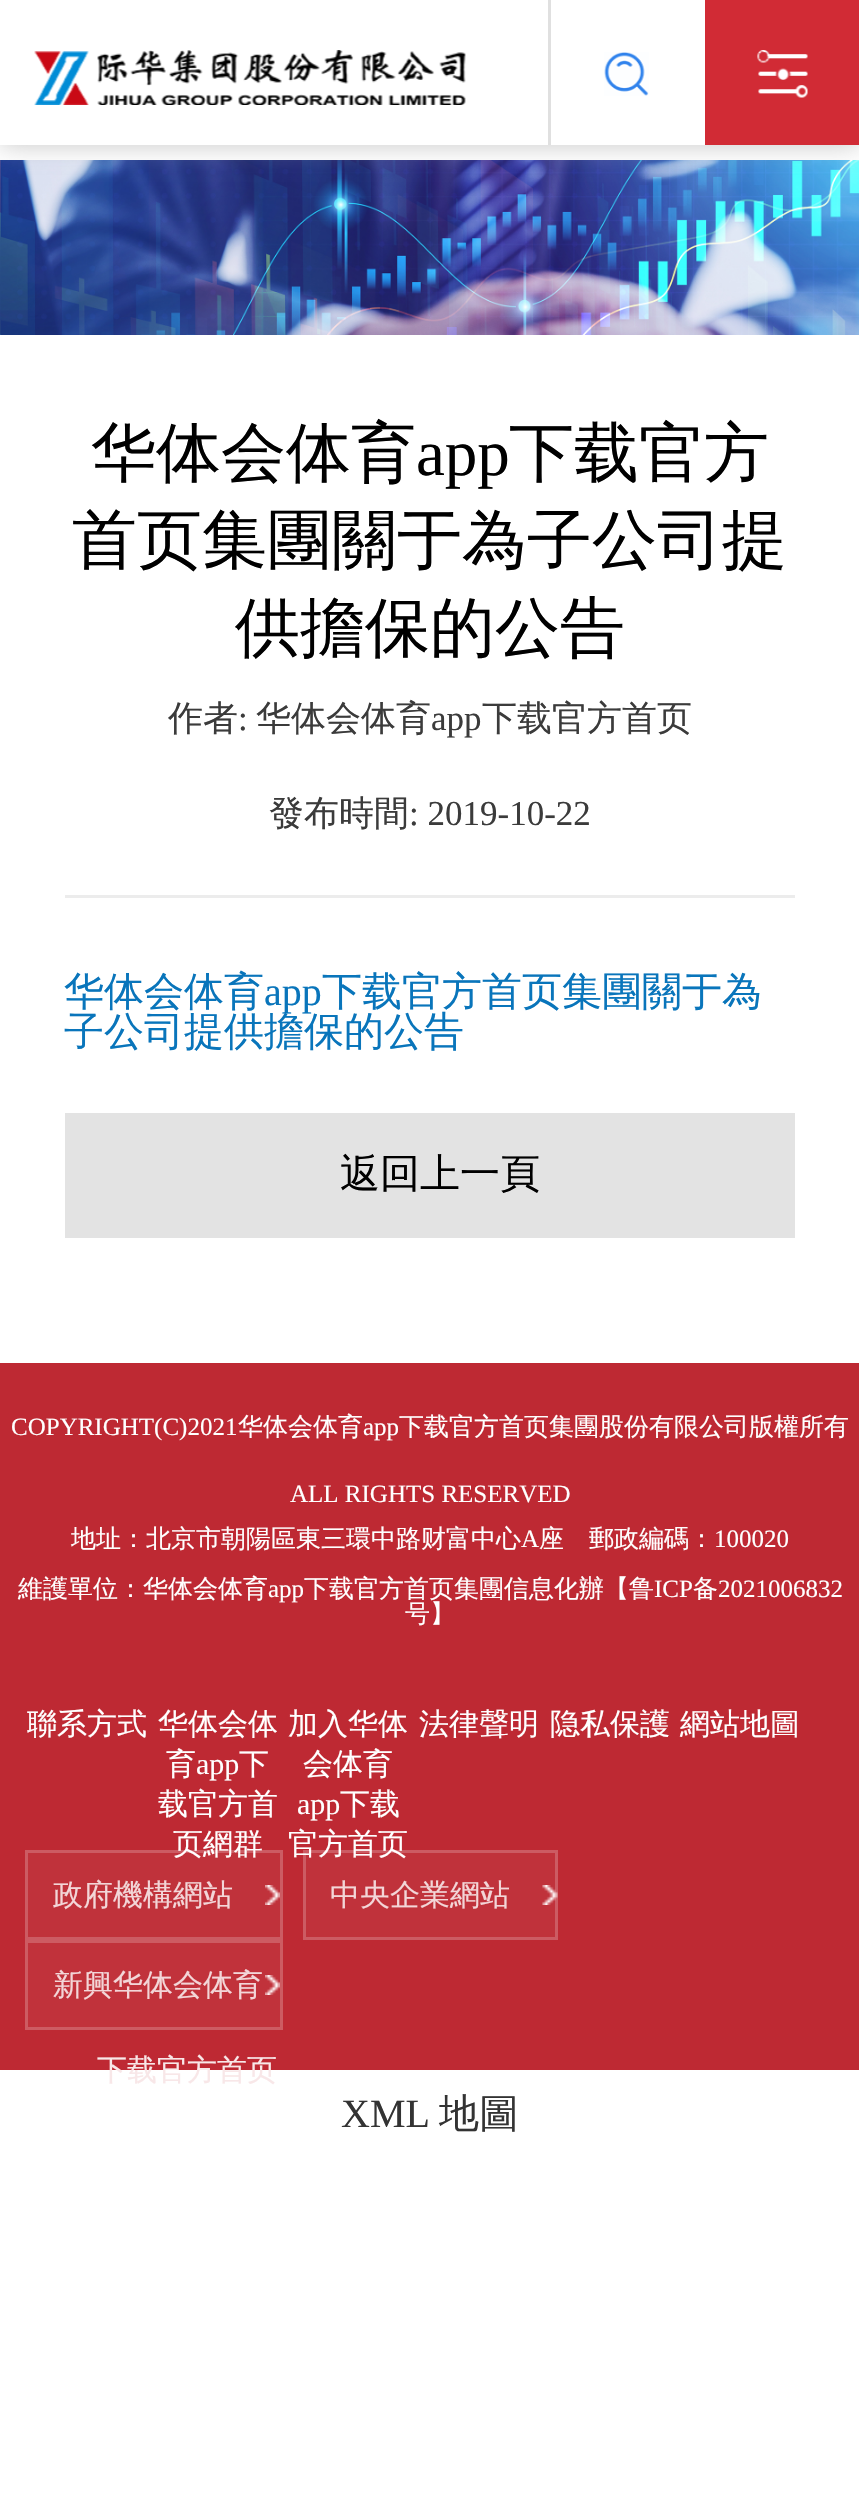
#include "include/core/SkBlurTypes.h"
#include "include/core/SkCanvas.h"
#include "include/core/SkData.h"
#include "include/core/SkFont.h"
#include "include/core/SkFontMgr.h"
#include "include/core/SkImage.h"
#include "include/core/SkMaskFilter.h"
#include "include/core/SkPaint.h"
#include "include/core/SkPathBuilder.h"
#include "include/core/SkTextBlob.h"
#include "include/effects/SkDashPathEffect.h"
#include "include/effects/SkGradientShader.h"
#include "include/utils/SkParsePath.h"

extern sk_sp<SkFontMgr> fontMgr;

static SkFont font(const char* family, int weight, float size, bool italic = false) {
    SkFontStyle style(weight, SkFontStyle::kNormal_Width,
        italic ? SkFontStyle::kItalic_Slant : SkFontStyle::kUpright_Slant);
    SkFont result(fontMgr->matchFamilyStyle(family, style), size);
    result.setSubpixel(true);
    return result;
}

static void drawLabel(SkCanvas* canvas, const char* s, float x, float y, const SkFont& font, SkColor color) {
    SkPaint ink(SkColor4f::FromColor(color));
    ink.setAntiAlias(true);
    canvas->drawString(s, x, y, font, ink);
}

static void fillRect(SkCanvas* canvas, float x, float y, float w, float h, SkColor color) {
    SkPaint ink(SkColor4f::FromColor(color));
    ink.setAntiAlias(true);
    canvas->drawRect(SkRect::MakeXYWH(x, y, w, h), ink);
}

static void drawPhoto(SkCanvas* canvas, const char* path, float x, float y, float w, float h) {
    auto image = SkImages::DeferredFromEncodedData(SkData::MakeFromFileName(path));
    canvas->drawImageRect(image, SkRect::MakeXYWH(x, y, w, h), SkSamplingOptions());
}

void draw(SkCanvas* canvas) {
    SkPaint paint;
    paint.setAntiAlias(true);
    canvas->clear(0xFFFFFFFF);
    drawPhoto(canvas, "assets/img4.png", 0, 160, 859, 175);
    paint.setColor(0xABAAAAAA);
    paint.setMaskFilter(SkMaskFilter::MakeBlur(kNormal_SkBlurStyle, 12.5f));
    canvas->drawRect(SkRect::MakeXYWH(0, 0, 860, 145), paint);
    paint.setMaskFilter(nullptr);
    fillRect(canvas, 0, 0, 705, 145, 0xFFFFFFFF);
    drawPhoto(canvas, "assets/img1.png", 34, 50, 432, 55);
    fillRect(canvas, 548, 0, 3, 145, 0xFFE0E0E0);
    drawPhoto(canvas, "assets/img2.png", 604, 52, 45, 44);
    fillRect(canvas, 705, 0, 154, 145, 0xFFD12B35);
    drawPhoto(canvas, "assets/img3.png", 757, 50, 51, 48);
    fillRect(canvas, 65, 895, 730, 3, 0xFFECECEC);
    SkFont font1 = font("WenQuanYi Zen Hei", 500, 65);
    drawLabel(canvas, "华体会体育", 91, 475, font1, 0xFF000000);
    SkFont font2 = font("Liberation Serif", 400, 65);
    drawLabel(canvas, "app", 416, 475, font2, 0xFF000000);
    drawLabel(canvas, "下载官方", 509, 475, font1, 0xFF000000);
    drawLabel(canvas, "首页集團關于為子公司提", 72, 562, font1, 0xFF000000);
    drawLabel(canvas, "供擔保的公告", 235, 650, font1, 0xFF000000);
    SkFont font3 = font("WenQuanYi Zen Hei", 500, 35);
    drawLabel(canvas, "作者", 168, 730, font3, 0xFF3B3B3B);
    SkFont font4 = font("Liberation Serif", 400, 35);
    drawLabel(canvas, ":", 238, 730, font4, 0xFF3B3B3B);
    drawLabel(canvas, "华体会体育", 256, 730, font3, 0xFF3B3B3B);
    drawLabel(canvas, "app", 431, 730, font4, 0xFF3B3B3B);
    drawLabel(canvas, "下载官方首页", 482, 730, font3, 0xFF3B3B3B);
    drawLabel(canvas, "發布時間", 269, 825, font3, 0xFF3B3B3B);
    drawLabel(canvas, ": 2019-10-22", 409, 825, font4, 0xFF3B3B3B);
    SkFont font5 = font("WenQuanYi Zen Hei", 500, 40);
    drawLabel(canvas, "华体会体育", 64, 1005, font5, 0xFF0975BB);
    SkFont font6 = font("Liberation Serif", 400, 40);
    drawLabel(canvas, "app", 264, 1005, font6, 0xFF0975BB);
    drawLabel(canvas, "下载官方首页集團關于為", 322, 1005, font5, 0xFF0975BB);
    drawLabel(canvas, "子公司提供擔保的公告", 64, 1045, font5, 0xFF0975BB);
    fillRect(canvas, 65, 1113, 730, 125, 0xFFE3E3E3);
    drawLabel(canvas, "返回上一頁", 340, 1187, font5, 0xFF000000);
    fillRect(canvas, 0, 1363, 859, 707, 0xFFBE2933);
    SkFont font7 = font("Liberation Serif", 400, 25);
    drawLabel(canvas, "COPYRIGHT(C)2021", 11, 1435, font7, 0xFFFFFFFF);
    SkFont font8 = font("WenQuanYi Zen Hei", 500, 25);
    drawLabel(canvas, "华体会体育", 238, 1435, font8, 0xFFFFFFFF);
    drawLabel(canvas, "app", 363, 1435, font7, 0xFFFFFFFF);
    drawLabel(canvas, "下载官方首页集團股份有限公司版權所有", 399, 1435, font8, 0xFFFFFFFF);
    drawLabel(canvas, "ALL RIGHTS RESERVED", 290, 1502, font7, 0xFFFFFFFF);
    drawLabel(canvas, "地址：北京市朝陽區東三環中路财富中心", 71, 1547, font8, 0xFFFFFFFF);
    drawLabel(canvas, "A", 521, 1547, font7, 0xFFFFFFFF);
    drawLabel(canvas, "座　郵政編碼：", 539, 1547, font8, 0xFFFFFFFF);
    drawLabel(canvas, "100020", 714, 1547, font7, 0xFFFFFFFF);
    drawLabel(canvas, "維護單位：华体会体育", 18, 1597, font8, 0xFFFFFFFF);
    drawLabel(canvas, "app", 268, 1597, font7, 0xFFFFFFFF);
    drawLabel(canvas, "下载官方首页集團信息化辦【鲁", 304, 1597, font8, 0xFFFFFFFF);
    drawLabel(canvas, "ICP", 654, 1597, font7, 0xFFFFFFFF);
    drawLabel(canvas, "备", 693, 1597, font8, 0xFFFFFFFF);
    drawLabel(canvas, "2021006832", 718, 1597, font7, 0xFFFFFFFF);
    drawLabel(canvas, "号】", 405, 1622, font8, 0xFFFFFFFF);
    SkFont font9 = font("WenQuanYi Zen Hei", 500, 30);
    drawLabel(canvas, "聯系方式", 27, 1734, font9, 0xFFFFFFFF);
    drawLabel(canvas, "华体会体", 158, 1734, font9, 0xFFFFFFFF);
    drawLabel(canvas, "育", 166, 1774, font9, 0xFFFFFFFF);
    SkFont font10 = font("Liberation Serif", 400, 30);
    drawLabel(canvas, "app", 196, 1774, font10, 0xFFFFFFFF);
    drawLabel(canvas, "下", 239, 1774, font9, 0xFFFFFFFF);
    drawLabel(canvas, "载官方首", 158, 1814, font9, 0xFFFFFFFF);
    drawLabel(canvas, "页網群", 173, 1854, font9, 0xFFFFFFFF);
    drawLabel(canvas, "加入华体", 288, 1734, font9, 0xFFFFFFFF);
    drawLabel(canvas, "会体育", 303, 1774, font9, 0xFFFFFFFF);
    drawLabel(canvas, "app", 297, 1814, font10, 0xFFFFFFFF);
    drawLabel(canvas, "下载", 340, 1814, font9, 0xFFFFFFFF);
    drawLabel(canvas, "官方首页", 288, 1854, font9, 0xFFFFFFFF);
    drawLabel(canvas, "法律聲明", 419, 1734, font9, 0xFFFFFFFF);
    drawLabel(canvas, "隐私保護", 550, 1734, font9, 0xFFFFFFFF);
    drawLabel(canvas, "網站地圖", 680, 1734, font9, 0xFFFFFFFF);
    fillRect(canvas, 25, 1850, 258, 90, 0x0AFFFFFF);
    drawPhoto(canvas, "assets/img5.png", 265, 1885, 15, 20);
    paint.setStroke(true);
    paint.setStrokeWidth(3);
    paint.setColor(0x33FFFFFF);
    canvas->drawRect(SkRect::MakeXYWH(26.5f, 1851.5f, 255, 87), paint);
    drawLabel(canvas, "政府機構網站", 53, 1905, font9, 0xFFF3D6D8);
    fillRect(canvas, 303, 1850, 255, 90, 0x0AFFFFFF);
    drawPhoto(canvas, "assets/img6.png", 542, 1885, 16, 20);
    canvas->drawRect(SkRect::MakeXYWH(304.5f, 1851.5f, 252, 87), paint);
    drawLabel(canvas, "中央企業網站", 330, 1905, font9, 0xFFF3D6D8);
    fillRect(canvas, 28, 1943, 252, 84, 0xFFC1323B);
    drawPhoto(canvas, "assets/img7.png", 265, 1975, 15, 20);
    paint.setColor(0xFFCD5B62);
    canvas->drawRect(SkRect::MakeXYWH(26.5f, 1941.5f, 255, 87), paint);
    drawLabel(canvas, "新興华体会体育", 53, 1995, font9, 0xFFF3D6D8);
    drawLabel(canvas, "下载官方首页", 97, 2080, font9, 0xFFF8E7E8);
    drawLabel(canvas, "XML", 341, 2127, font6, 0xFF333333);
    drawLabel(canvas, "地圖", 439, 2127, font5, 0xFF333333);
}
